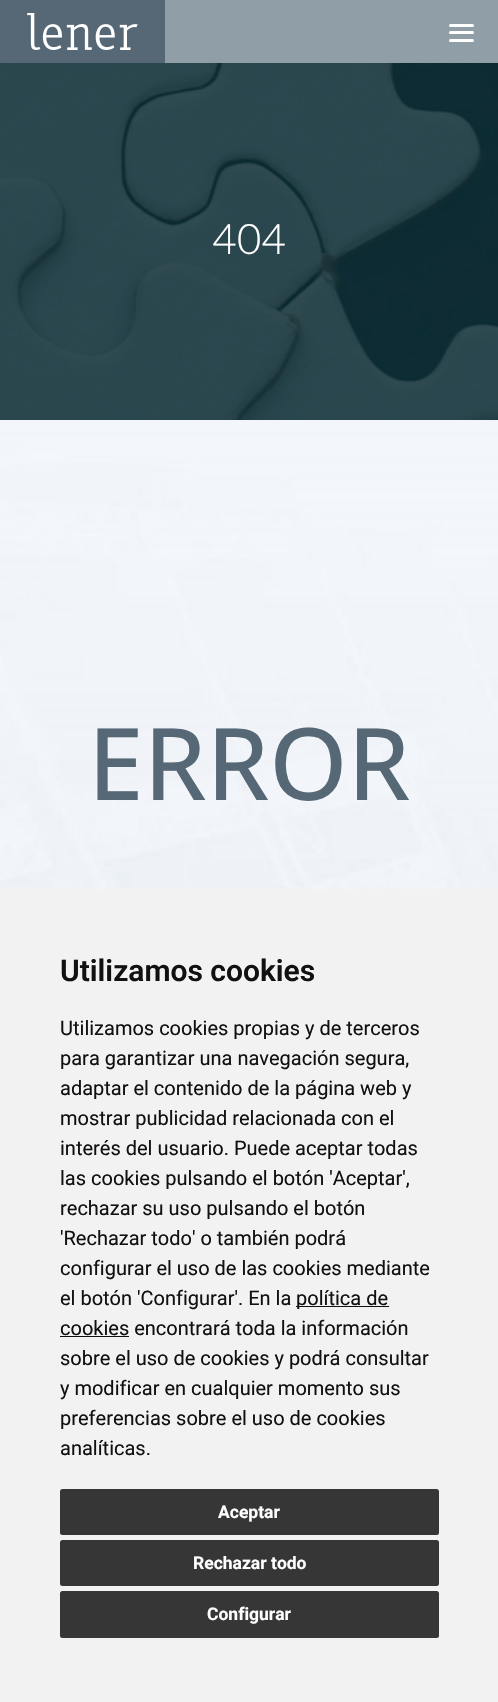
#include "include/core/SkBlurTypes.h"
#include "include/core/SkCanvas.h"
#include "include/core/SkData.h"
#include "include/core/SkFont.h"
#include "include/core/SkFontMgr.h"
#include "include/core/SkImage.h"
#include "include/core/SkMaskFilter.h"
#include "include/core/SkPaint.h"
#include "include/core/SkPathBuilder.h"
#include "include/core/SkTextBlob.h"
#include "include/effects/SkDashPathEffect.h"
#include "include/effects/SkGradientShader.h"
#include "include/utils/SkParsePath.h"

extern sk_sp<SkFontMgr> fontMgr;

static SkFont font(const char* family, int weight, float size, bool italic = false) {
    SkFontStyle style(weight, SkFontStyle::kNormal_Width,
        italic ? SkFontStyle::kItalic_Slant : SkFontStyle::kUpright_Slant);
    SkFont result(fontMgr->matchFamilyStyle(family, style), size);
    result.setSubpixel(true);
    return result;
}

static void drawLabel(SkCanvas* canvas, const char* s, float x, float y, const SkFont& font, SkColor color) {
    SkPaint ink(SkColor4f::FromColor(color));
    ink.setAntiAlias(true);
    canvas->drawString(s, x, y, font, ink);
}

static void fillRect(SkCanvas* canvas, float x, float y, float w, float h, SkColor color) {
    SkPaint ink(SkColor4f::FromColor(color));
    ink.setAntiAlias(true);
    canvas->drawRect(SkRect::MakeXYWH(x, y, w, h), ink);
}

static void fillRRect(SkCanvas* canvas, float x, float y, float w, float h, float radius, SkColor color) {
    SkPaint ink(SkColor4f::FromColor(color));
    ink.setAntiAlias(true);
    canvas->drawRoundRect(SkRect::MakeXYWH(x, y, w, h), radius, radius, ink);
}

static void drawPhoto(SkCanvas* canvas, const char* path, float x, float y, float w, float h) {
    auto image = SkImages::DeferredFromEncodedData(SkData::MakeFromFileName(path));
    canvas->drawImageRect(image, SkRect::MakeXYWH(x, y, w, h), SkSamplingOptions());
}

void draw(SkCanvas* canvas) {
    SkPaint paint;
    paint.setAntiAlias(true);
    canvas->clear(0xFFFFFFFF);
    fillRect(canvas, 0, 0, 165, 63, 0xFF566876);
    drawPhoto(canvas, "assets/img1.png", 27, 13, 111, 37);
    fillRect(canvas, 165, 0, 333, 63, 0xFF909EA7);
    fillRRect(canvas, 449, 39, 25, 3, 1.5f, 0xFFFFFFFF);
    fillRRect(canvas, 449, 24, 25, 3, 1.5f, 0xFFFFFFFF);
    fillRRect(canvas, 449, 31, 25, 3, 1.5f, 0xFFFFFFFF);
    drawPhoto(canvas, "assets/img2.png", 0, 63, 498, 357);
    SkFont font1 = font("Aleo", 300, 42);
    drawLabel(canvas, "404", 212, 254, font1, 0xFFFFFFFF);
    drawPhoto(canvas, "assets/img3.png", 0, 420, 498, 469);
    SkFont font2 = font("Open Sans", 500, 100);
    drawLabel(canvas, "ERROR", 88, 800, font2, 0xFF566876);
    fillRect(canvas, 0, 889, 498, 813, 0xFFF2F2F2);
    SkFont font3 = font("Roboto", 600, 30);
    drawLabel(canvas, "Utilizamos cookies", 60, 981, font3, 0xFF111111);
    SkFont font4 = font("Roboto", 400, 20);
    drawLabel(canvas, "Utilizamos cookies propias y de terceros", 60, 1035, font4, 0xFF111111);
    drawLabel(canvas, "para garantizar una navegación segura,", 60, 1065, font4, 0xFF111111);
    drawLabel(canvas, "adaptar el contenido de la página web y", 60, 1095, font4, 0xFF111111);
    drawLabel(canvas, "mostrar publicidad relacionada con el", 60, 1125, font4, 0xFF111111);
    drawLabel(canvas, "interés del usuario. Puede aceptar todas", 60, 1155, font4, 0xFF111111);
    drawLabel(canvas, "las cookies pulsando el botón 'Aceptar',", 60, 1185, font4, 0xFF111111);
    drawLabel(canvas, "rechazar su uso pulsando el botón", 60, 1215, font4, 0xFF111111);
    drawLabel(canvas, "'Rechazar todo' o también podrá", 60, 1245, font4, 0xFF111111);
    drawLabel(canvas, "configurar el uso de las cookies mediante", 60, 1275, font4, 0xFF111111);
    drawLabel(canvas, "el botón 'Configurar'. En la", 60, 1305, font4, 0xFF111111);
    fillRect(canvas, 296, 1306, 93, 1, 0xFF111111);
    drawLabel(canvas, "política de", 296, 1305, font4, 0xFF111111);
    drawLabel(canvas, "cookies encontrará toda la información", 60, 1335, font4, 0xFF111111);
    fillRect(canvas, 60, 1336, 69, 1, 0xFF111111);
    drawLabel(canvas, "sobre el uso de cookies y podrá consultar", 60, 1365, font4, 0xFF111111);
    drawLabel(canvas, "y modificar en cualquier momento sus", 60, 1395, font4, 0xFF111111);
    drawLabel(canvas, "preferencias sobre el uso de cookies", 60, 1425, font4, 0xFF111111);
    drawLabel(canvas, "analíticas.", 60, 1455, font4, 0xFF111111);
    fillRRect(canvas, 60, 1489, 379, 46, 2.5f, 0xFF363636);
    SkFont font5 = font("Roboto", 700, 17.5f);
    drawLabel(canvas, "Aceptar", 218, 1518, font5, 0xFFFFFFFF);
    fillRRect(canvas, 60, 1540, 379, 46, 2.5f, 0xFF363636);
    drawLabel(canvas, "Rechazar todo", 193, 1569, font5, 0xFFFFFFFF);
    fillRRect(canvas, 60, 1591, 379, 47, 2.5f, 0xFF363636);
    drawLabel(canvas, "Configurar", 207, 1620, font5, 0xFFFFFFFF);
}
